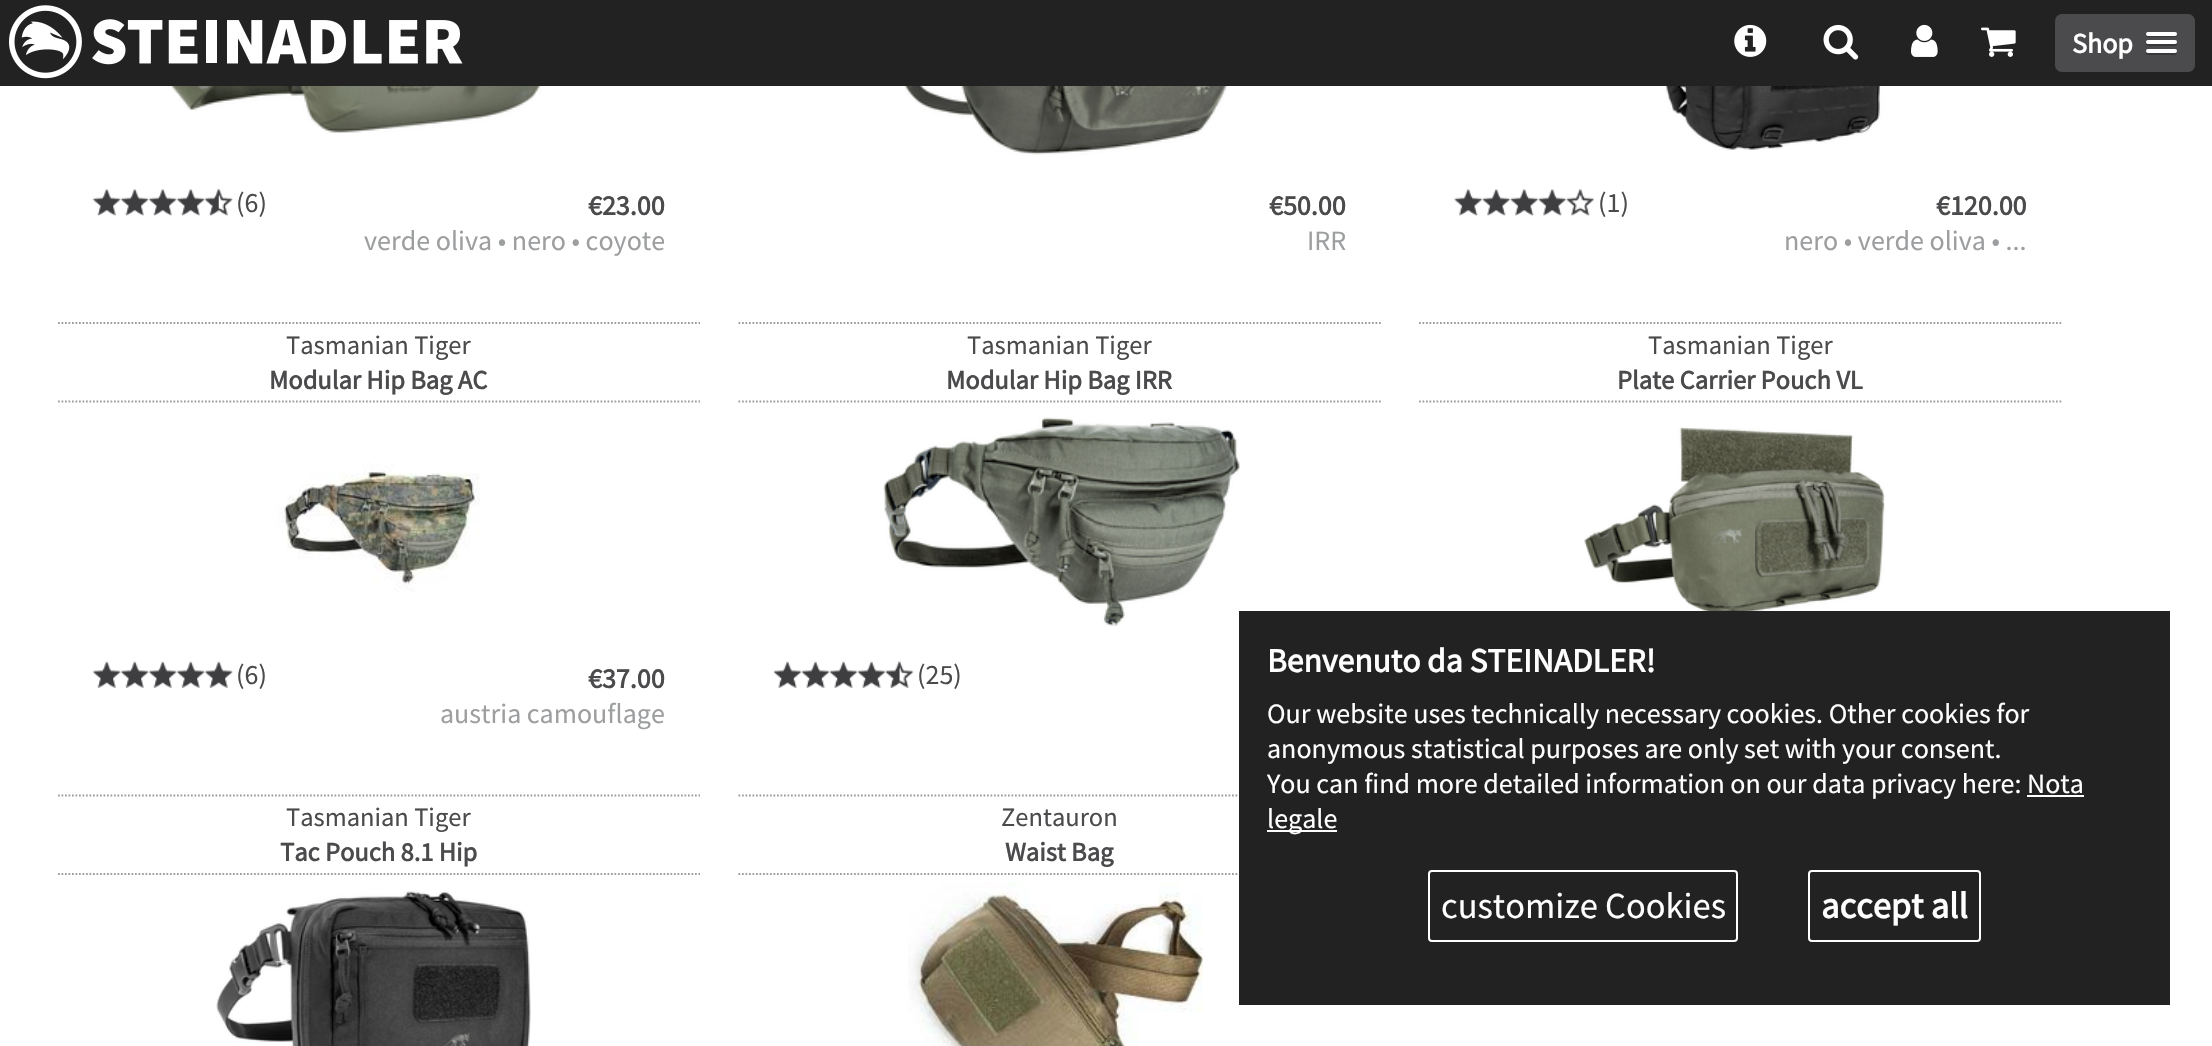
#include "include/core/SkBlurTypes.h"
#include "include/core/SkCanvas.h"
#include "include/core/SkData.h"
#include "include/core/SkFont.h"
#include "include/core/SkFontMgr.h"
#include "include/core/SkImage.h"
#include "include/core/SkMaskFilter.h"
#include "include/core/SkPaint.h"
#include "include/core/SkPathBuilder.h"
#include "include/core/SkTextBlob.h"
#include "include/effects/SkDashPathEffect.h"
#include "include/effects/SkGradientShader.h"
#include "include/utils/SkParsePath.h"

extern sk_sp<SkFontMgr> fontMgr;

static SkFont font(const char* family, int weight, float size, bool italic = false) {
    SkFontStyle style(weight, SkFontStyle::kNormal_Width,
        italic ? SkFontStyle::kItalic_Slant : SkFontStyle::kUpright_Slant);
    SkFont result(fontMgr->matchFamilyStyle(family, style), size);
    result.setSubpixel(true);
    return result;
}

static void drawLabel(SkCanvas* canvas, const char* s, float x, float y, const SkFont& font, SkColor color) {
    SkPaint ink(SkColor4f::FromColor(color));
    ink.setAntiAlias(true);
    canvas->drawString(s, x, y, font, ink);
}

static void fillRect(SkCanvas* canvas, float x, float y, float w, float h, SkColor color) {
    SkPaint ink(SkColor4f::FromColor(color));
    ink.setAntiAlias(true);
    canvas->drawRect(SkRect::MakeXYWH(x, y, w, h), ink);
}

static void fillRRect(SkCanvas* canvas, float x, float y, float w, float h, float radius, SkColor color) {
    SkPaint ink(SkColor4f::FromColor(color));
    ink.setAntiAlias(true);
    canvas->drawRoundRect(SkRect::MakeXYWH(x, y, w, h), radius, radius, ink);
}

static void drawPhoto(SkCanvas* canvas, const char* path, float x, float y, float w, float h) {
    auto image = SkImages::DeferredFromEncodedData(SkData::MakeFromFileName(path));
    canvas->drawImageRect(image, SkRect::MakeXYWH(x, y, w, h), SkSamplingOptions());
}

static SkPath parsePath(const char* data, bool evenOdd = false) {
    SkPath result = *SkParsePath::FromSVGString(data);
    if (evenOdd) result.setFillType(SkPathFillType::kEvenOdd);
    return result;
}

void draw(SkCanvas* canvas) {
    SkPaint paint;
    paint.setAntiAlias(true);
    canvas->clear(0xFFFFFFFF);
    fillRect(canvas, 0, 0, 2212, 86, 0xFF222222);
    drawPhoto(canvas, "assets/img1.png", 9, 5, 454, 74);
    drawPhoto(canvas, "assets/img2.png", 1734, 24, 33, 33);
    drawPhoto(canvas, "assets/img3.png", 1823, 24, 36, 36);
    drawPhoto(canvas, "assets/img4.png", 1911, 24, 27, 33);
    drawPhoto(canvas, "assets/img5.png", 1981, 27, 35, 30);
    fillRRect(canvas, 2055, 14, 140, 58, 7, 0xFF4B4B4D);
    SkFont font1 = font("Source Sans Pro", 700, 28);
    drawLabel(canvas, "Shop", 2072, 53, font1, 0xFFFFFFFF);
    paint.setColor(0xFF38383A);
    canvas->drawPath(parsePath("M2146 34.5C2145 38 2151.5 37 2152.5 37H2170.5C2171.5 37 2178.5 38 2177 34L2175.5 35H2147Z"), paint);
    fillRRect(canvas, 2146, 32, 31, 4, 2, 0xFFFFFFFF);
    canvas->drawPath(parsePath("M2146 43.5C2145 47 2151.5 46 2152.5 46H2170.5C2171 46 2179 47 2176.5 43L2175.5 43.5H2147Z"), paint);
    fillRRect(canvas, 2146, 40, 31, 4, 2, 0xFFFFFFFF);
    canvas->drawPath(parsePath("M2146 52C2144.5 56 2151.5 55 2152.5 55H2170.5C2171.5 55 2176.5 56 2177 53.5L2176.5 52L2175.5 52.5C2173 53 2147 53 2146 52Z"), paint);
    fillRRect(canvas, 2146, 49, 31, 4, 2, 0xFFFFFFFF);
    drawPhoto(canvas, "assets/img6.png", 171, 86, 386, 47);
    drawPhoto(canvas, "assets/img7.png", 92, 189, 29, 27);
    drawPhoto(canvas, "assets/img8.png", 120, 189, 29, 27);
    drawPhoto(canvas, "assets/img8.png", 148, 189, 29, 27);
    drawPhoto(canvas, "assets/img8.png", 176, 189, 29, 27);
    drawPhoto(canvas, "assets/img9.png", 204, 189, 29, 27);
    SkFont font2 = font("Source Sans Pro", 400, 28);
    drawLabel(canvas, "(6)", 236, 212, font2, 0xFF4B4B4D);
    drawLabel(canvas, "€23.00", 588, 215, font1, 0xFF4B4B4D);
    drawLabel(canvas, "verde oliva • nero • coyote", 364, 250, font2, 0xFF9C9E9F);
    drawPhoto(canvas, "assets/img10.png", 877, 86, 367, 69);
    drawLabel(canvas, "€50.00", 1269, 215, font1, 0xFF4B4B4D);
    drawLabel(canvas, "IRR", 1307, 250, font2, 0xFF9C9E9F);
    drawPhoto(canvas, "assets/img11.png", 1581, 86, 305, 64);
    drawPhoto(canvas, "assets/img12.png", 1454, 189, 29, 27);
    drawPhoto(canvas, "assets/img13.png", 1482, 189, 29, 27);
    drawPhoto(canvas, "assets/img13.png", 1510, 189, 29, 27);
    drawPhoto(canvas, "assets/img14.png", 1538, 189, 29, 27);
    drawPhoto(canvas, "assets/img15.png", 1566, 189, 29, 27);
    drawLabel(canvas, "(1)", 1598, 212, font2, 0xFF4B4B4D);
    drawLabel(canvas, "€120.00", 1936, 215, font1, 0xFF4B4B4D);
    drawLabel(canvas, "nero • verde oliva • ...", 1784, 250, font2, 0xFF9C9E9F);
    paint.setStroke(true);
    paint.setStrokeWidth(1.8f);
    paint.setColor(0xFF9C9E9F);
    paint.setPathEffect(SkDashPathEffect::Make({{1.75f, 1.75f}}, 0));
    canvas->drawPath(parsePath("M58 323H700"), paint);
    paint.setPathEffect(nullptr);
    paint.setPathEffect(SkDashPathEffect::Make({{1.75f, 1.75f}}, 0));
    canvas->drawPath(parsePath("M58 401.5H700"), paint);
    paint.setPathEffect(nullptr);
    SkFont font3 = font("Source Sans Pro", 400, 26.5f);
    drawLabel(canvas, "Tasmanian Tiger", 286, 354, font3, 0xFF4B4B4D);
    SkFont font4 = font("Source Sans Pro", 700, 26.5f);
    drawLabel(canvas, "Modular Hip Bag AC", 269, 389, font4, 0xFF4B4B4D);
    drawPhoto(canvas, "assets/img16.png", 277, 463, 203, 129);
    drawPhoto(canvas, "assets/img17.png", 92, 661, 29, 27);
    drawPhoto(canvas, "assets/img18.png", 120, 661, 29, 27);
    drawPhoto(canvas, "assets/img18.png", 148, 661, 29, 27);
    drawPhoto(canvas, "assets/img18.png", 176, 661, 29, 27);
    drawPhoto(canvas, "assets/img19.png", 204, 661, 29, 27);
    drawLabel(canvas, "(6)", 236, 684, font2, 0xFF4B4B4D);
    drawLabel(canvas, "€37.00", 588, 688, font1, 0xFF4B4B4D);
    drawLabel(canvas, "austria camouflage", 440, 723, font2, 0xFF9C9E9F);
    paint.setPathEffect(SkDashPathEffect::Make({{1.75f, 1.75f}}, 0));
    canvas->drawPath(parsePath("M738.5 323H1381"), paint);
    paint.setPathEffect(nullptr);
    paint.setPathEffect(SkDashPathEffect::Make({{1.75f, 1.75f}}, 0));
    canvas->drawPath(parsePath("M738.5 401.5H1381"), paint);
    paint.setPathEffect(nullptr);
    drawLabel(canvas, "Tasmanian Tiger", 967, 354, font3, 0xFF4B4B4D);
    drawLabel(canvas, "Modular Hip Bag IRR", 946, 389, font4, 0xFF4B4B4D);
    drawPhoto(canvas, "assets/img20.png", 883, 417, 357, 210);
    drawPhoto(canvas, "assets/img21.png", 773, 661, 29, 27);
    drawPhoto(canvas, "assets/img22.png", 801, 661, 29, 27);
    drawPhoto(canvas, "assets/img23.png", 829, 661, 29, 27);
    drawPhoto(canvas, "assets/img23.png", 857, 661, 29, 27);
    drawPhoto(canvas, "assets/img24.png", 885, 661, 29, 27);
    drawLabel(canvas, "(25)", 917, 684, font2, 0xFF4B4B4D);
    paint.setPathEffect(SkDashPathEffect::Make({{1.75f, 1.75f}}, 0));
    canvas->drawPath(parsePath("M1419 323H2061.5"), paint);
    paint.setPathEffect(nullptr);
    paint.setPathEffect(SkDashPathEffect::Make({{1.75f, 1.75f}}, 0));
    canvas->drawPath(parsePath("M1419 401.5H2061.5"), paint);
    paint.setPathEffect(nullptr);
    drawLabel(canvas, "Tasmanian Tiger", 1648, 354, font3, 0xFF4B4B4D);
    drawLabel(canvas, "Plate Carrier Pouch VL", 1617, 389, font4, 0xFF4B4B4D);
    drawPhoto(canvas, "assets/img25.png", 1584, 427, 301, 184);
    paint.setPathEffect(SkDashPathEffect::Make({{1.75f, 1.75f}}, 0));
    canvas->drawPath(parsePath("M58 795.5H700"), paint);
    paint.setPathEffect(nullptr);
    paint.setPathEffect(SkDashPathEffect::Make({{1.75f, 1.75f}}, 0));
    canvas->drawPath(parsePath("M58 874H700"), paint);
    paint.setPathEffect(nullptr);
    drawLabel(canvas, "Tasmanian Tiger", 286, 826, font3, 0xFF4B4B4D);
    drawLabel(canvas, "Tac Pouch 8.1 Hip", 280, 861, font4, 0xFF4B4B4D);
    drawPhoto(canvas, "assets/img26.png", 216, 891, 315, 155);
    paint.setPathEffect(SkDashPathEffect::Make({{1.75f, 1.75f}}, 0));
    canvas->drawPath(parsePath("M738.5 795.5H1381"), paint);
    paint.setPathEffect(nullptr);
    paint.setPathEffect(SkDashPathEffect::Make({{1.75f, 1.75f}}, 0));
    canvas->drawPath(parsePath("M738.5 874H1381"), paint);
    paint.setPathEffect(nullptr);
    drawLabel(canvas, "Zentauron", 1001, 826, font3, 0xFF4B4B4D);
    drawLabel(canvas, "Waist Bag", 1005, 861, font4, 0xFF4B4B4D);
    drawPhoto(canvas, "assets/img27.png", 908, 882, 295, 164);
    fillRect(canvas, 1239, 611, 931, 394, 0xFF222222);
    SkFont font5 = font("Source Sans Pro", 700, 33.6f);
    drawLabel(canvas, "Benvenuto da STEINADLER!", 1267, 672, font5, 0xFFFFFFFF);
    drawLabel(canvas, "Our website uses technically necessary cookies. Other cookies for", 1267, 723, font2, 0xFFFFFFFF);
    drawLabel(canvas, "anonymous statistical purposes are only set with your consent.", 1267, 758, font2, 0xFFFFFFFF);
    drawLabel(canvas, "You can find more detailed information on our data privacy here: Nota", 1267, 793, font2, 0xFFFFFFFF);
    fillRect(canvas, 1267, 830, 70, 2, 0xFFFFFFFF);
    drawLabel(canvas, "legale", 1267, 828, font2, 0xFFFFFFFF);
    fillRect(canvas, 2027, 795, 57, 2, 0xFFFFFFFF);
    paint.setStrokeWidth(2);
    paint.setColor(0xFFFFFFFF);
    canvas->drawRoundRect(SkRect::MakeXYWH(1429, 871, 308, 70), 3, 3, paint);
    SkFont font6 = font("Source Sans Pro", 400, 36.5f);
    drawLabel(canvas, "customize Cookies", 1441, 918, font6, 0xFFFFFFFF);
    canvas->drawRoundRect(SkRect::MakeXYWH(1809, 871, 171, 70), 3, 3, paint);
    SkFont font7 = font("Source Sans Pro", 700, 36.5f);
    drawLabel(canvas, "accept all", 1821, 918, font7, 0xFFFFFFFF);
}
